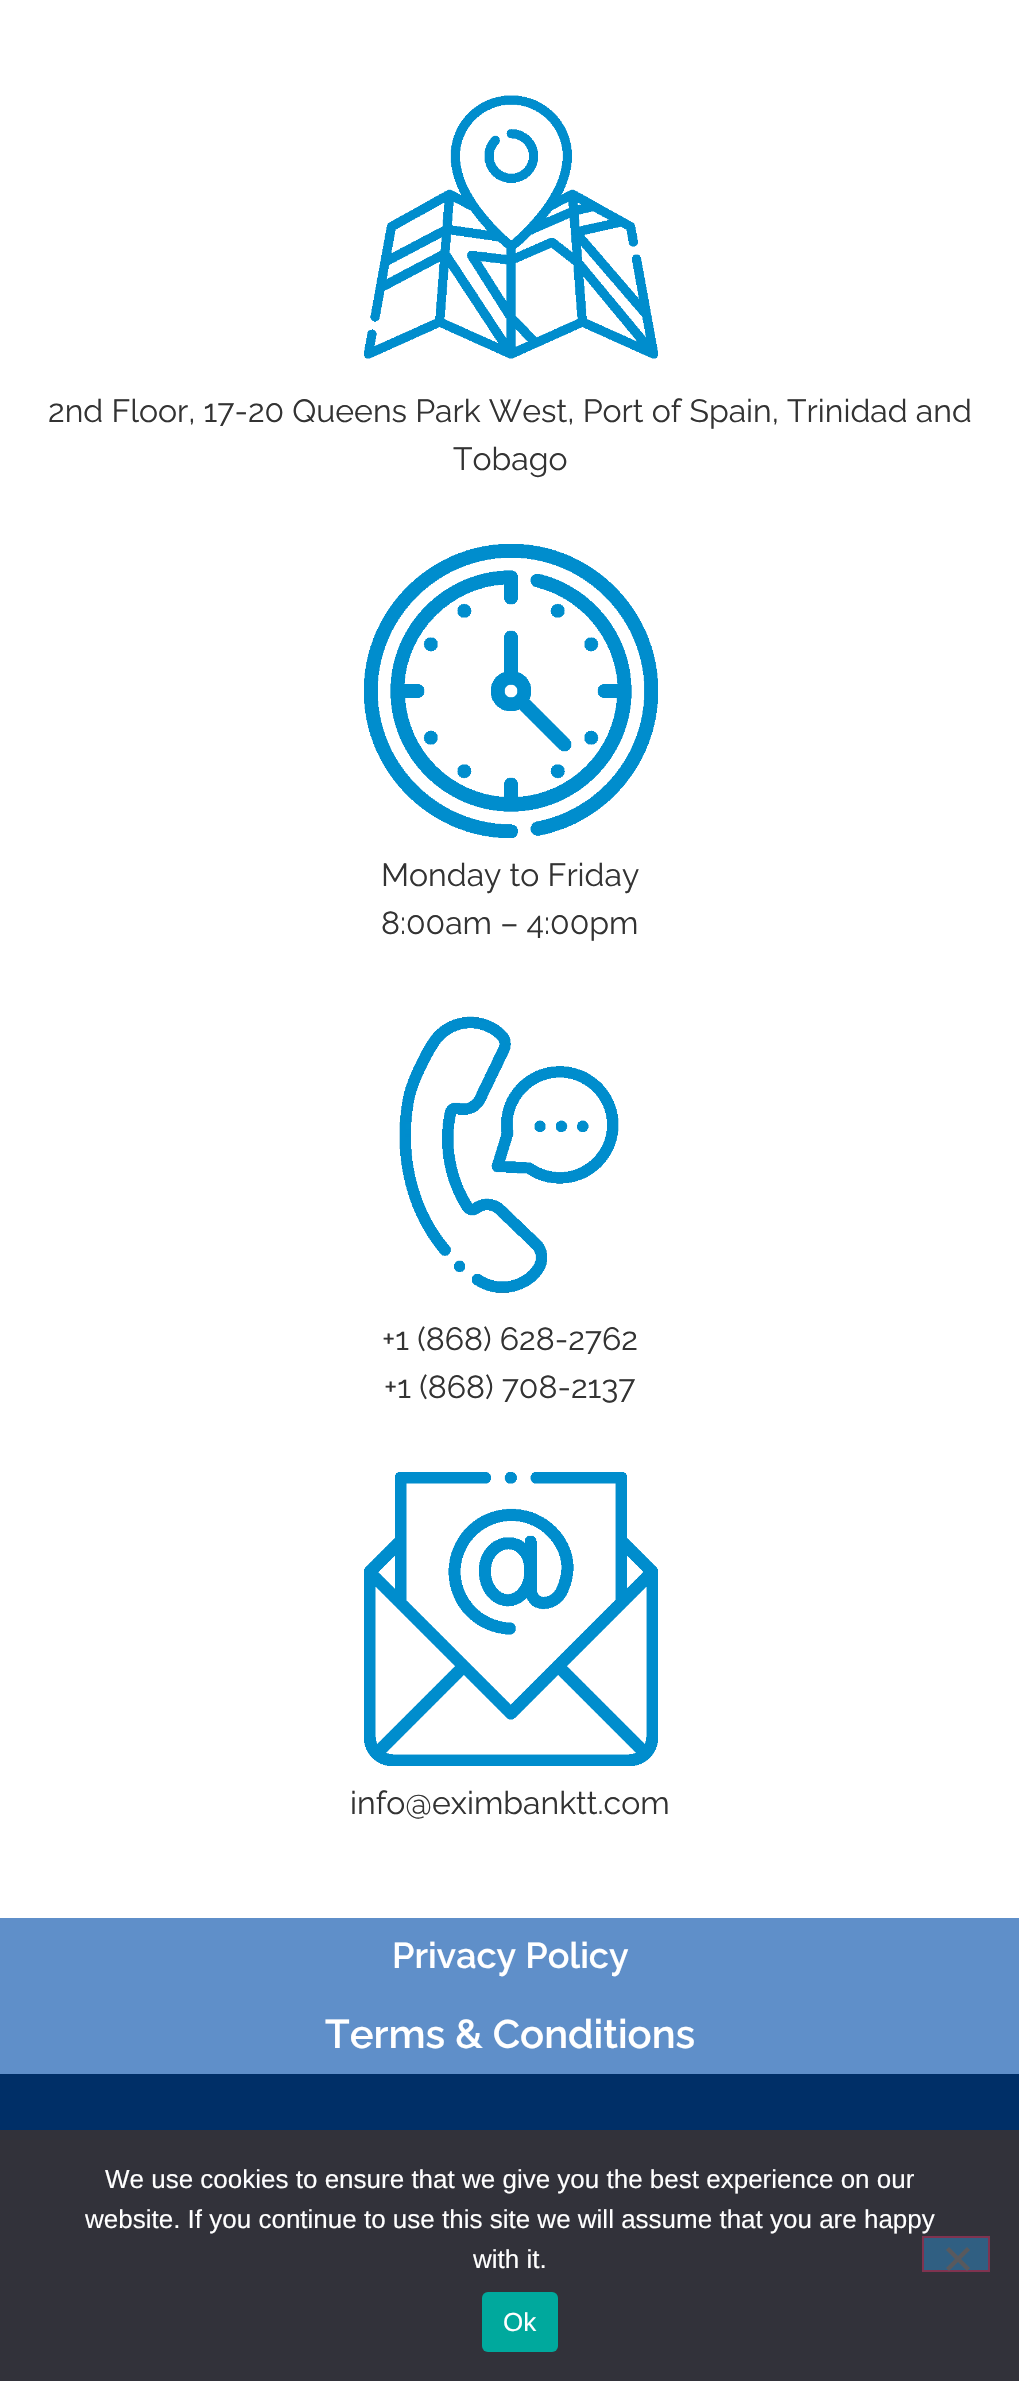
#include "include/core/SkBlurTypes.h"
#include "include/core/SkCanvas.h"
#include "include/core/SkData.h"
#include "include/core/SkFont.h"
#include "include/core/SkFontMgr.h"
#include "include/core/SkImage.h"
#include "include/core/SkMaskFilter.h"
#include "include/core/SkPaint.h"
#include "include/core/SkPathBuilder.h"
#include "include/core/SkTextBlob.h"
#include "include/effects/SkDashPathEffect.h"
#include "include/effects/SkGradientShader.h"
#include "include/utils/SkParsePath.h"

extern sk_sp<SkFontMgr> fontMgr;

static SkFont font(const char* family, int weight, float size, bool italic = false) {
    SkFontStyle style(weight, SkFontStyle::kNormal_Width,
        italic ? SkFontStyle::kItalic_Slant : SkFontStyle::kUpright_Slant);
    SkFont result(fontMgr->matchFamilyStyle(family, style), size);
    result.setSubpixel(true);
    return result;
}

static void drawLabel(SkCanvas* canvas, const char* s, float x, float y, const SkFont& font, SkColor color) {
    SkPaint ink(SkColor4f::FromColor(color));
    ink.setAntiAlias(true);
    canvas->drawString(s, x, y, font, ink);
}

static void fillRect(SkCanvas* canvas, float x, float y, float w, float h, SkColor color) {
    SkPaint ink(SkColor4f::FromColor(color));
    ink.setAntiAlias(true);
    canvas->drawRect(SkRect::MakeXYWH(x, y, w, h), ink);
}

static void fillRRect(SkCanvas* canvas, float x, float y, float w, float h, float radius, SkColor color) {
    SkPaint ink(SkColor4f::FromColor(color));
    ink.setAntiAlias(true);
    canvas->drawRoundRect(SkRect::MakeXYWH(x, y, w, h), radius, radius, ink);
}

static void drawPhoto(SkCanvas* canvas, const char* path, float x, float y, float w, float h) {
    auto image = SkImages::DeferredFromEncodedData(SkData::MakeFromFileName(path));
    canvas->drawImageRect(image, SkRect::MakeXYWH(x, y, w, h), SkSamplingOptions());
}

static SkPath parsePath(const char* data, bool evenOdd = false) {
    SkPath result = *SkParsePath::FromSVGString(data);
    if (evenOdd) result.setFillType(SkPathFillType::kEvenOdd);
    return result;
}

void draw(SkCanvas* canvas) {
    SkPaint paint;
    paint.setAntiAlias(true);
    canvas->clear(0xFFFFFFFF);
    drawPhoto(canvas, "assets/img1.png", 364, 95, 294, 264);
    SkFont font1 = font("Raleway", 400, 32);
    drawLabel(canvas, "2nd Floor, 17-20 Queens Park West, Port of Spain, Trinidad and", 48, 422, font1, 0xFF333333);
    drawLabel(canvas, "Tobago", 453, 470, font1, 0xFF333333);
    drawPhoto(canvas, "assets/img2.png", 364, 544, 294, 294);
    drawLabel(canvas, "Monday to Friday", 381, 886, font1, 0xFF333333);
    drawLabel(canvas, "8:00am – 4:00pm", 381, 934, font1, 0xFF333333);
    drawPhoto(canvas, "assets/img3.png", 399, 1016, 220, 277);
    drawLabel(canvas, "+1 (868) 628-2762", 382, 1350, font1, 0xFF333333);
    drawLabel(canvas, "+1 (868) 708-2137", 384, 1398, font1, 0xFF333333);
    drawPhoto(canvas, "assets/img4.png", 364, 1472, 294, 294);
    drawLabel(canvas, "info@eximbanktt.com", 350, 1814, font1, 0xFF333333);
    fillRect(canvas, 0, 1918, 1019, 156, 0xFF5F8FC9);
    SkFont font2 = font("Raleway", 600, 36);
    drawLabel(canvas, "Privacy Policy", 392, 1968, font2, 0xFFFFFFFF);
    SkFont font3 = font("Raleway", 600, 40);
    drawLabel(canvas, "Terms & Conditions", 325, 2048, font3, 0xFFFFFFFF);
    fillRect(canvas, 0, 2074, 1019, 56, 0xFF002F67);
    fillRect(canvas, 0, 2130, 1019, 251, 0xFF32323A);
    SkFont font4 = font("Liberation Sans", 400, 26);
    drawLabel(canvas, "We use cookies to ensure that we give you the best experience on our", 105, 2188, font4, 0xFFFFFFFF);
    drawLabel(canvas, "website. If you continue to use this site we will assume that you are happy", 85, 2228, font4, 0xFFFFFFFF);
    drawLabel(canvas, "with it.", 473, 2268, font4, 0xFFFFFFFF);
    paint.setColor(0xFF305F82);
    canvas->drawRect(SkRect::MakeXYWH(923, 2237, 66, 34), paint);
    paint.setStroke(true);
    paint.setStrokeWidth(2);
    paint.setColor(0xFF7F3350);
    canvas->drawRect(SkRect::MakeXYWH(923, 2237, 66, 34), paint);
    paint.setStroke(false);
    paint.setColor(0xFF59595D);
    canvas->drawPath(parsePath("M967 2247L970 2250L949 2271L946 2268Z"), paint);
    canvas->drawPath(parsePath("M946 2250L949 2247L970 2268L967 2271Z"), paint);
    fillRRect(canvas, 482, 2292, 76, 60, 6, 0xFF00A99D);
    drawLabel(canvas, "Ok", 503, 2331, font4, 0xFFFFFFFF);
}
